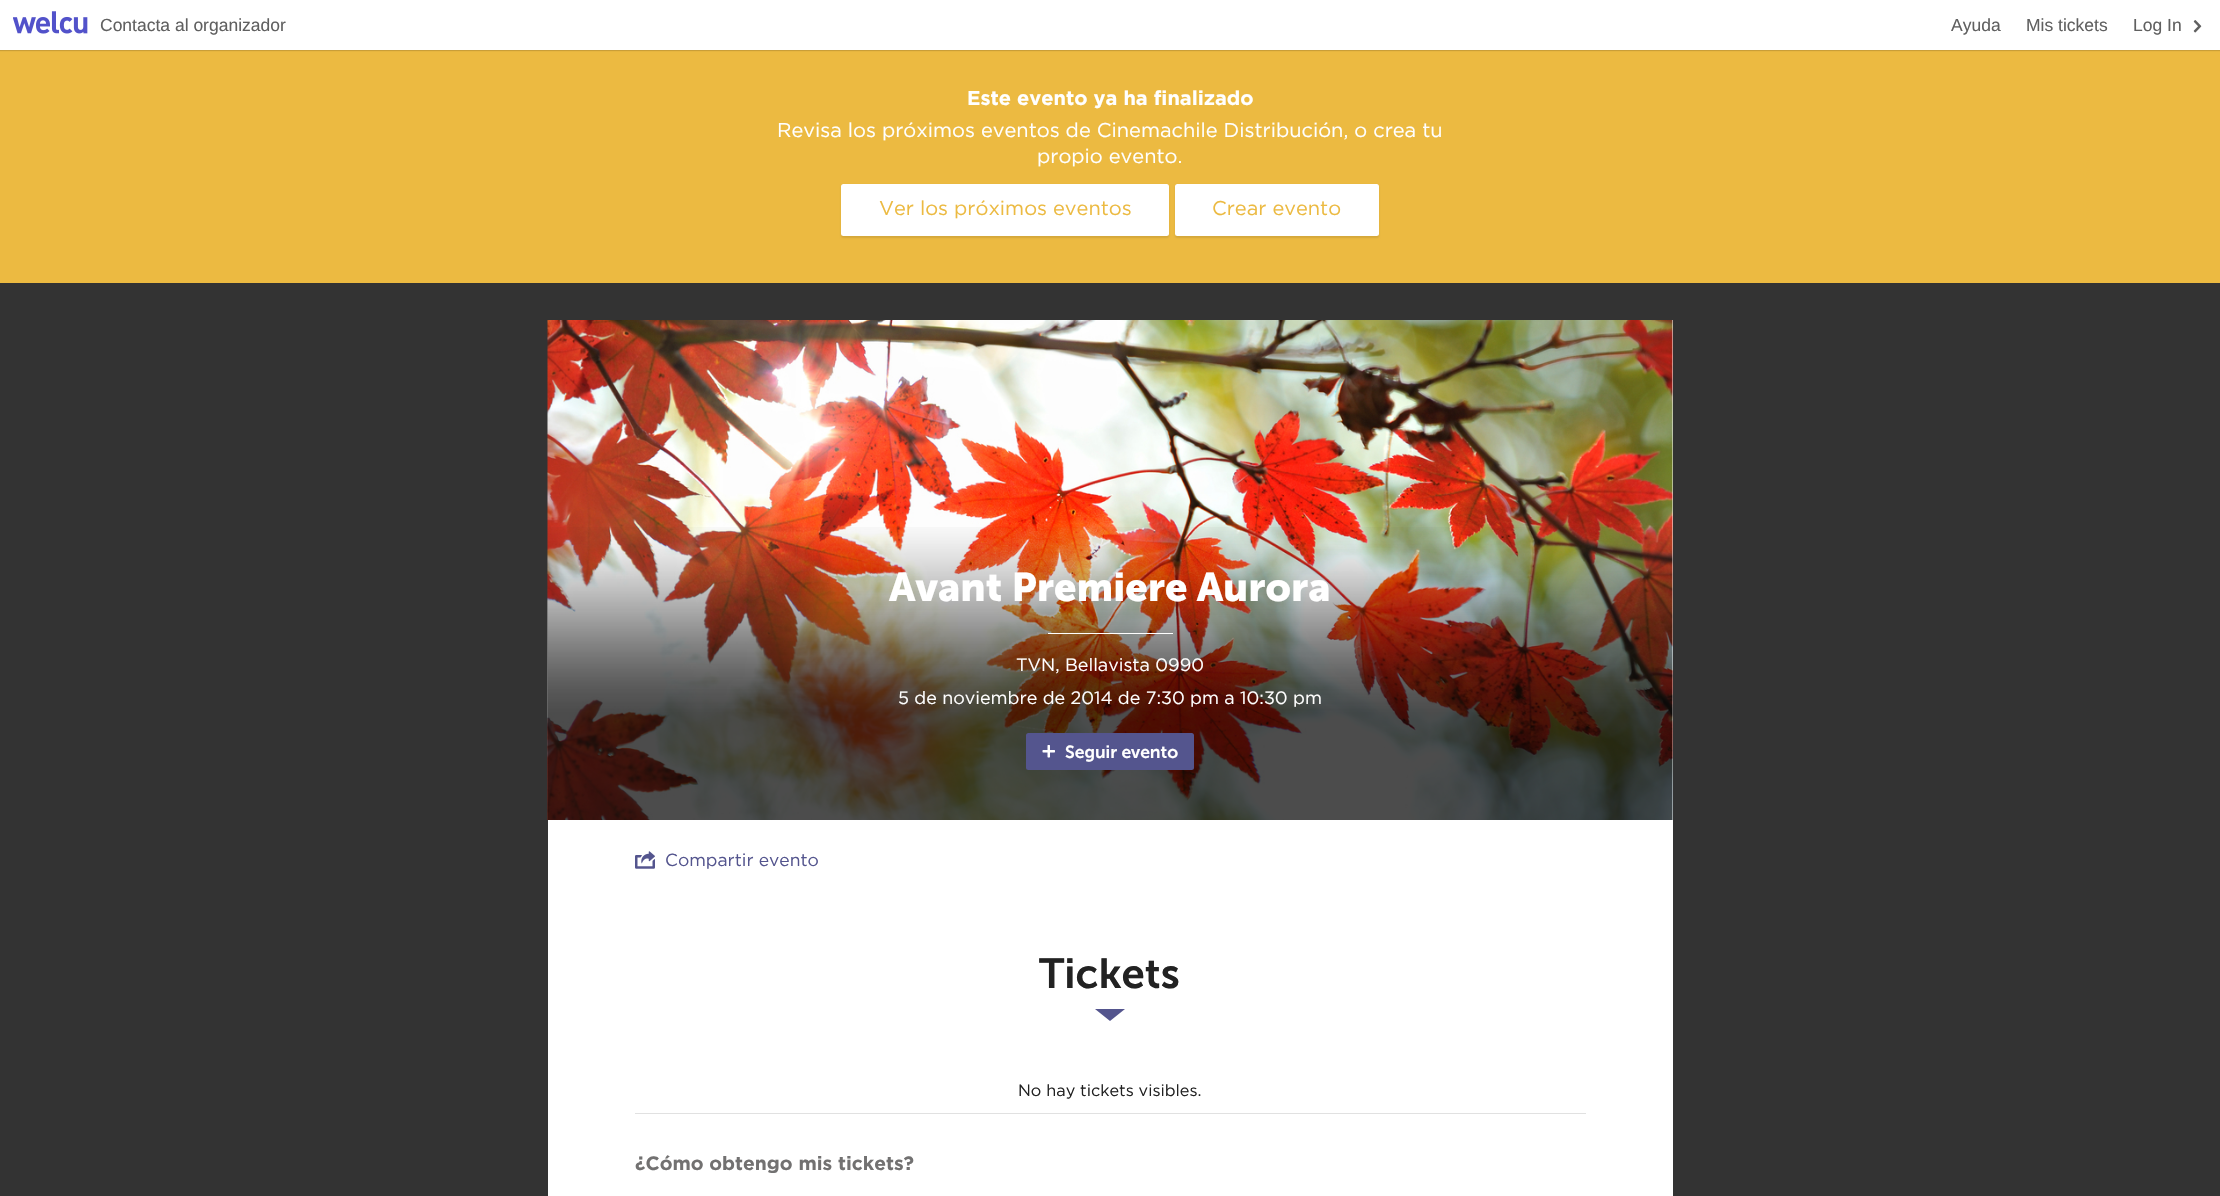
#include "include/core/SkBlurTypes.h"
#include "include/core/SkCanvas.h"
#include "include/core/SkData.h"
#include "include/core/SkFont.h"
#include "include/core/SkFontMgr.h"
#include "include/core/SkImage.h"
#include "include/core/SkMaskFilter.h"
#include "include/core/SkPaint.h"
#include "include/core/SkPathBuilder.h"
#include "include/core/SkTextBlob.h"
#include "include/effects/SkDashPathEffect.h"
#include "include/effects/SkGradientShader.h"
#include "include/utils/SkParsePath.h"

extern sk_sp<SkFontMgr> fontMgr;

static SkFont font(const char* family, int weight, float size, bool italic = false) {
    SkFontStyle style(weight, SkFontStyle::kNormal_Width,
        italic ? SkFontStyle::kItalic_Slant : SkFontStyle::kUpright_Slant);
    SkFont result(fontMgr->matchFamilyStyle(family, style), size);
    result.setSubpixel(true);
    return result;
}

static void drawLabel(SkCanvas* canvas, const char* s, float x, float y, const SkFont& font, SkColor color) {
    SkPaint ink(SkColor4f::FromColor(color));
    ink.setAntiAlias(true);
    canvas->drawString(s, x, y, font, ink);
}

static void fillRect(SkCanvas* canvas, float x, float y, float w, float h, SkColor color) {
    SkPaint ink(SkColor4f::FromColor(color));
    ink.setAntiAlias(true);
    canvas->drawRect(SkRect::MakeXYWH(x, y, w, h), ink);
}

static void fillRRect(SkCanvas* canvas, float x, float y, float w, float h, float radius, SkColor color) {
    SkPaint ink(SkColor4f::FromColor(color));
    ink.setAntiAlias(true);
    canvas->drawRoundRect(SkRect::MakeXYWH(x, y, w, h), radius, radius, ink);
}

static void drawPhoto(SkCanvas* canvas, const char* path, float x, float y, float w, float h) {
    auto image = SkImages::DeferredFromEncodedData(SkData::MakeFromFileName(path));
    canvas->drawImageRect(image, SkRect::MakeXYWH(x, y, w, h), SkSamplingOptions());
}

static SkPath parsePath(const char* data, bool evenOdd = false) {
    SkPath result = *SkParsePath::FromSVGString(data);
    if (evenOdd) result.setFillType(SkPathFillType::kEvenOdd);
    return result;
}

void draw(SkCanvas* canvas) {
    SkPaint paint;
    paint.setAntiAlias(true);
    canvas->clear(0xFF333333);
    fillRect(canvas, 0, 50, 2220, 233, 0xFFECBA41);
    paint.setColor(0x26000000);
    paint.setMaskFilter(SkMaskFilter::MakeBlur(kNormal_SkBlurStyle, 0.5f));
    canvas->drawRect(SkRect::MakeXYWH(0, 1, 2220, 50), paint);
    paint.setMaskFilter(nullptr);
    fillRect(canvas, 0, 0, 2220, 50, 0xFFFFFFFF);
    drawPhoto(canvas, "assets/img1.png", 13, 11, 75, 23);
    SkFont font1 = font("Liberation Sans", 400, 17.5f);
    drawLabel(canvas, "Contacta al organizador", 100, 31, font1, 0xFF606060);
    drawLabel(canvas, "Ayuda", 1951, 31, font1, 0xFF606060);
    drawLabel(canvas, "Mis tickets", 2026, 31, font1, 0xFF606060);
    drawLabel(canvas, "Log In", 2133, 31, font1, 0xFF606060);
    drawPhoto(canvas, "assets/img2.png", 2193, 20, 9, 13);
    SkFont font2 = font("Gotham", 700, 20);
    drawLabel(canvas, "Este evento ya ha finalizado", 967, 105, font2, 0xFFFFFFFF);
    SkFont font3 = font("Gotham", 400, 20);
    drawLabel(canvas, "Revisa los próximos eventos de Cinemachile Distribución, o crea tu", 777, 137, font3, 0xFFFFFFFF);
    drawLabel(canvas, "propio evento.", 1037, 163, font3, 0xFFFFFFFF);
    paint.setColor(0x1A000000);
    paint.setMaskFilter(SkMaskFilter::MakeBlur(kNormal_SkBlurStyle, 1));
    canvas->drawRoundRect(SkRect::MakeXYWH(841, 185, 328, 53), 2.5f, 2.5f, paint);
    paint.setMaskFilter(nullptr);
    fillRRect(canvas, 841, 184, 328, 52, 2.5f, 0xFFFFFFFF);
    drawLabel(canvas, "Ver los próximos eventos", 879, 215, font3, 0xFFECBA41);
    paint.setMaskFilter(SkMaskFilter::MakeBlur(kNormal_SkBlurStyle, 1));
    canvas->drawRoundRect(SkRect::MakeXYWH(1175, 185, 204, 53), 2.5f, 2.5f, paint);
    paint.setMaskFilter(nullptr);
    fillRRect(canvas, 1175, 184, 204, 52, 2.5f, 0xFFFFFFFF);
    drawLabel(canvas, "Crear evento", 1212, 215, font3, 0xFFECBA41);
    fillRect(canvas, 548, 320, 1125, 876, 0xFFFFFFFF);
    drawPhoto(canvas, "assets/img3.png", 547, 320, 1126, 500);
    drawPhoto(canvas, "assets/img4.png", 547, 527, 1126, 293);
    SkFont font4 = font("Museo Sans", 700, 40);
    drawLabel(canvas, "Avant Premiere Aurora", 889, 601, font4, 0xFFFFFFFF);
    fillRect(canvas, 1048, 633, 125, 1, 0xFFFFFFFF);
    SkFont font5 = font("Gotham", 400, 17.9f);
    drawLabel(canvas, "TVN, Bellavista 0990", 1016, 671, font5, 0xFFFFFFFF);
    drawLabel(canvas, "5 de noviembre de 2014 de 7:30 pm a 10:30 pm", 898, 704, font5, 0xFFFFFFFF);
    fillRRect(canvas, 1026, 733, 168, 37, 2.5f, 0xFF54558E);
    drawPhoto(canvas, "assets/img5.png", 1042, 745, 13, 13);
    SkFont font6 = font("Museo Sans", 600, 17.5f);
    drawLabel(canvas, "Seguir evento", 1065, 758, font6, 0xFFFFFFFF);
    drawPhoto(canvas, "assets/img6.png", 635, 851, 20, 18);
    SkFont font7 = font("Gotham", 400, 17.5f);
    drawLabel(canvas, "Compartir evento", 665, 866, font7, 0xFF54558E);
    SkFont font8 = font("Museo Sans", 600, 42);
    drawLabel(canvas, "Tickets", 1039, 988, font8, 0xFF222222);
    paint.setColor(0xFF54558E);
    canvas->drawPath(parsePath("M1095 1009H1125L1110 1021Z"), paint);
    fillRect(canvas, 635, 1113, 951, 1, 0xFFE1E1E1);
    SkFont font9 = font("Gotham", 400, 16.25f);
    drawLabel(canvas, "No hay tickets visibles.", 1018, 1096, font9, 0xFF222222);
    SkFont font10 = font("Gotham", 700, 19.25f);
    drawLabel(canvas, "¿Cómo obtengo mis tickets?", 635, 1170, font10, 0xFF727171);
}
